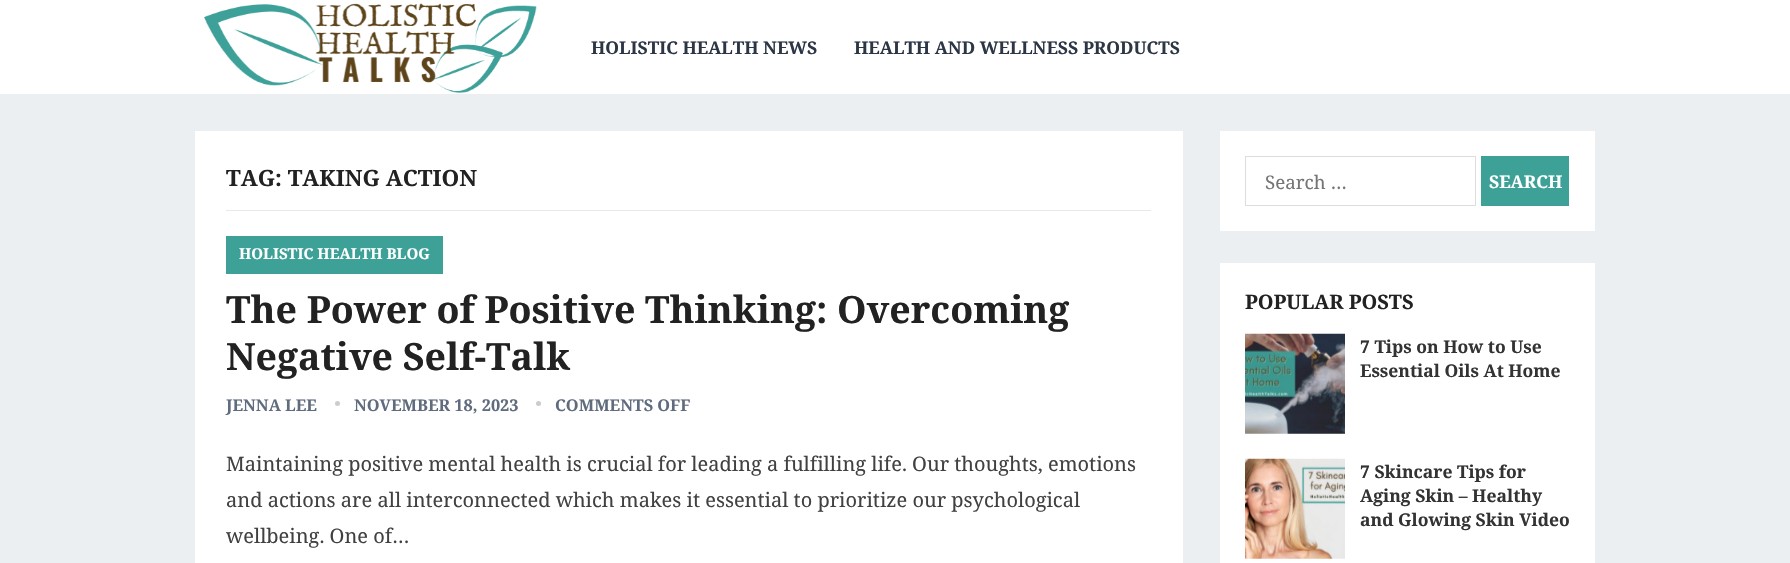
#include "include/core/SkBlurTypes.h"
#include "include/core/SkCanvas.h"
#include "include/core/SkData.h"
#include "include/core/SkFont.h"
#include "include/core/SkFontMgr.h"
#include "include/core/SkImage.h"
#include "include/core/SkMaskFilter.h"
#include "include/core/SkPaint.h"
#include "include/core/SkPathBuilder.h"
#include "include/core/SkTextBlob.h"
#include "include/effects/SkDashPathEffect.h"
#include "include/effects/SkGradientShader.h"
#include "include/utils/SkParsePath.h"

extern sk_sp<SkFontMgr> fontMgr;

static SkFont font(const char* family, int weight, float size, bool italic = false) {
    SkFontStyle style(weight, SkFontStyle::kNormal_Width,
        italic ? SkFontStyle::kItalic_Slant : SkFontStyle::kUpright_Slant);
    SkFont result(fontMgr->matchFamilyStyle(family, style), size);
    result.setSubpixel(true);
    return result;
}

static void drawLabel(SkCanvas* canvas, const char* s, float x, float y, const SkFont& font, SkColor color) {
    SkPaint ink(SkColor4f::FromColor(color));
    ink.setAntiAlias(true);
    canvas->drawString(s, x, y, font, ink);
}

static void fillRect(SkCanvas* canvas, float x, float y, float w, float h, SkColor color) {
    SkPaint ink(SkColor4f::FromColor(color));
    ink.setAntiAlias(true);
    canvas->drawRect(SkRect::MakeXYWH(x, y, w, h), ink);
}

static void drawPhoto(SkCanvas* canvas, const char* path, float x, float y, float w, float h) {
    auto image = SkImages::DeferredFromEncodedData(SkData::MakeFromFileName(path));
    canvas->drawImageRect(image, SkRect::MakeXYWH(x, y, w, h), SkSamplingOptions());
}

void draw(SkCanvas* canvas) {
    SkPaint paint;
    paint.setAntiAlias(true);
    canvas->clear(0xFFECEFF1);
    fillRect(canvas, 0, 0, 1790, 94, 0xFFFFFFFF);
    drawPhoto(canvas, "assets/img1.png", 204, 3, 333, 90);
    SkFont font1 = font("Noto Serif", 700, 17.5f);
    drawLabel(canvas, "HOLISTIC HEALTH NEWS", 591, 54, font1, 0xFF2C3644);
    drawLabel(canvas, "HEALTH AND WELLNESS PRODUCTS", 854, 54, font1, 0xFF2C3644);
    fillRect(canvas, 195, 131, 988, 432, 0xFFFFFFFF);
    fillRect(canvas, 226, 210, 925, 1, 0xFFE9E9E9);
    SkFont font2 = font("Noto Serif", 700, 22.5f);
    drawLabel(canvas, "TAG: TAKING ACTION", 226, 186, font2, 0xFF222222);
    fillRect(canvas, 226, 236, 217, 38, 0xFF3EA198);
    SkFont font3 = font("Noto Serif", 700, 15);
    drawLabel(canvas, "HOLISTIC HEALTH BLOG", 239, 259, font3, 0xFFFFFFFF);
    SkFont font4 = font("Noto Serif", 700, 37.5f);
    drawLabel(canvas, "The Power of Positive Thinking: Overcoming", 226, 323, font4, 0xFF222222);
    drawLabel(canvas, "Negative Self-Talk", 226, 370, font4, 0xFF222222);
    SkFont font5 = font("Noto Serif", 700, 16.25f);
    drawLabel(canvas, "JENNA LEE", 226, 411, font5, 0xFF606C7E);
    paint.setColor(0xFFCCCCCC);
    canvas->drawCircle(337.5f, 403.5f, 2.5f, paint);
    drawLabel(canvas, "NOVEMBER 18, 2023", 354, 411, font5, 0xFF606C7E);
    canvas->drawCircle(538.5f, 403.5f, 2.5f, paint);
    drawLabel(canvas, "COMMENTS OFF", 555, 411, font5, 0xFF606C7E);
    SkFont font6 = font("Noto Serif", 400, 20);
    drawLabel(canvas, "Maintaining positive mental health is crucial for leading a fulfilling life. Our thoughts, emotions", 226, 471, font6, 0xFF414141);
    drawLabel(canvas, "and actions are all interconnected which makes it essential to prioritize our psychological", 226, 507, font6, 0xFF414141);
    drawLabel(canvas, "wellbeing. One of…", 226, 543, font6, 0xFF414141);
    fillRect(canvas, 1220, 131, 375, 100, 0xFFFFFFFF);
    paint.setStroke(true);
    paint.setStrokeWidth(1);
    paint.setColor(0xFFDDDDDD);
    canvas->drawRect(SkRect::MakeXYWH(1245.5f, 156.5f, 230, 49), paint);
    SkFont font7 = font("Noto Serif", 400, 18.75f);
    drawLabel(canvas, "Search …", 1265, 189, font7, 0xFF757575);
    fillRect(canvas, 1481, 156, 88, 50, 0xFF3EA198);
    drawLabel(canvas, "SEARCH", 1489, 188, font1, 0xFFFFFFFF);
    fillRect(canvas, 1220, 263, 375, 300, 0xFFFFFFFF);
    SkFont font8 = font("Noto Serif", 700, 20);
    drawLabel(canvas, "POPULAR POSTS", 1245, 309, font8, 0xFF222222);
    drawPhoto(canvas, "assets/img2.png", 1245, 333, 100, 101);
    drawLabel(canvas, "7 Tips on How to Use", 1360, 353, font1, 0xFF333333);
    drawLabel(canvas, "Essential Oils At Home", 1360, 377, font1, 0xFF333333);
    drawPhoto(canvas, "assets/img3.png", 1245, 458, 100, 101);
    drawLabel(canvas, "7 Skincare Tips for", 1360, 478, font1, 0xFF333333);
    drawLabel(canvas, "Aging Skin – Healthy", 1360, 502, font1, 0xFF333333);
    drawLabel(canvas, "and Glowing Skin Video", 1360, 526, font1, 0xFF333333);
}
